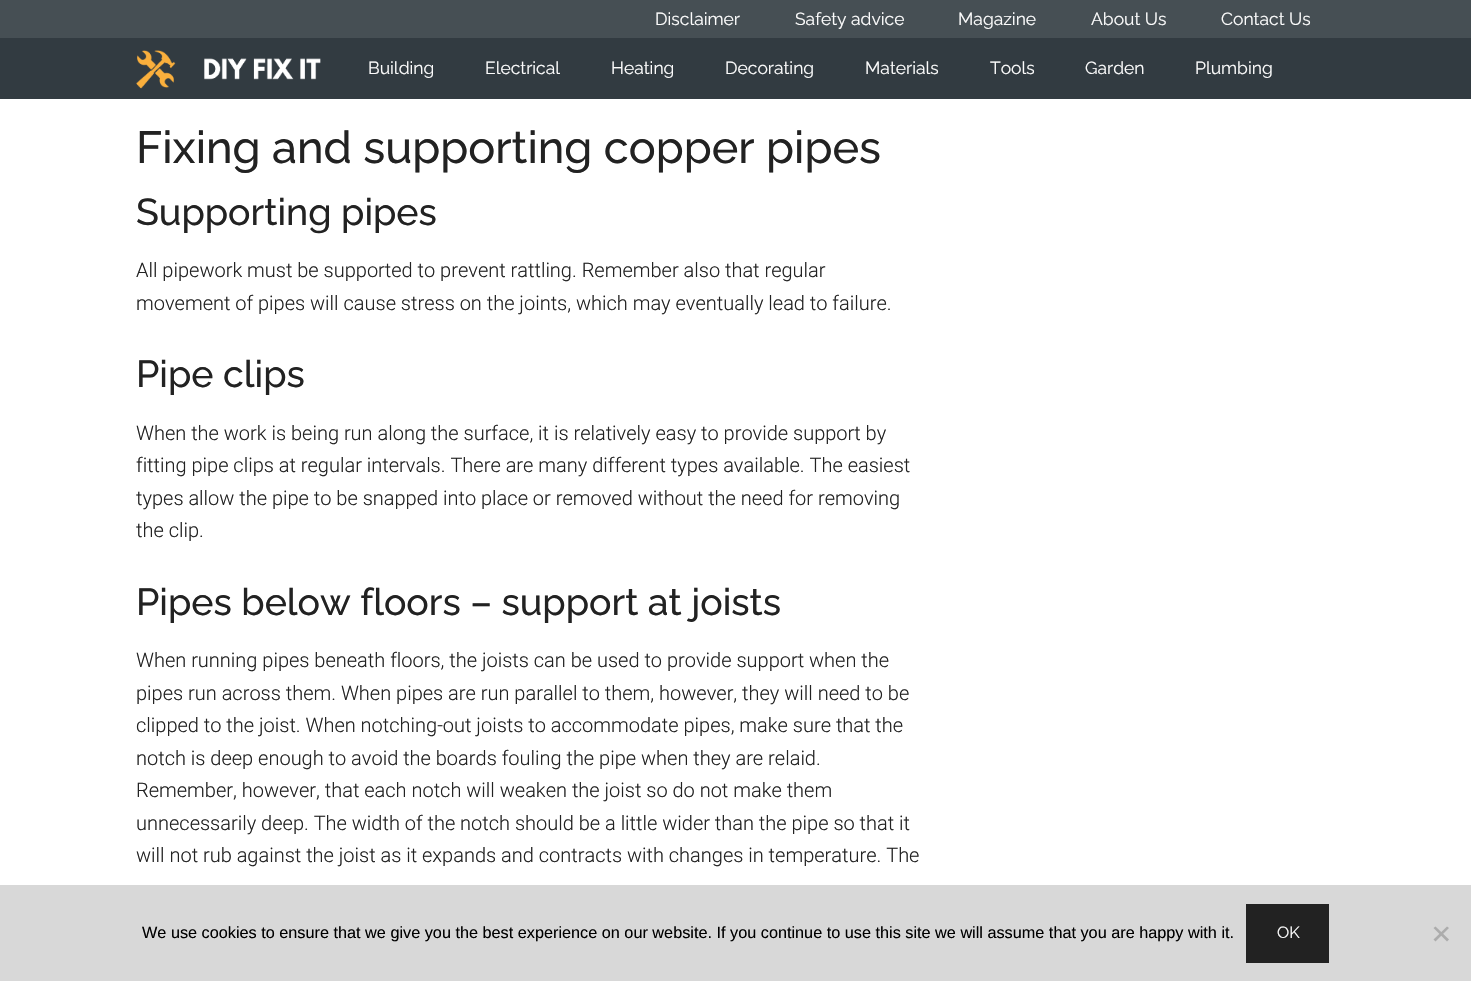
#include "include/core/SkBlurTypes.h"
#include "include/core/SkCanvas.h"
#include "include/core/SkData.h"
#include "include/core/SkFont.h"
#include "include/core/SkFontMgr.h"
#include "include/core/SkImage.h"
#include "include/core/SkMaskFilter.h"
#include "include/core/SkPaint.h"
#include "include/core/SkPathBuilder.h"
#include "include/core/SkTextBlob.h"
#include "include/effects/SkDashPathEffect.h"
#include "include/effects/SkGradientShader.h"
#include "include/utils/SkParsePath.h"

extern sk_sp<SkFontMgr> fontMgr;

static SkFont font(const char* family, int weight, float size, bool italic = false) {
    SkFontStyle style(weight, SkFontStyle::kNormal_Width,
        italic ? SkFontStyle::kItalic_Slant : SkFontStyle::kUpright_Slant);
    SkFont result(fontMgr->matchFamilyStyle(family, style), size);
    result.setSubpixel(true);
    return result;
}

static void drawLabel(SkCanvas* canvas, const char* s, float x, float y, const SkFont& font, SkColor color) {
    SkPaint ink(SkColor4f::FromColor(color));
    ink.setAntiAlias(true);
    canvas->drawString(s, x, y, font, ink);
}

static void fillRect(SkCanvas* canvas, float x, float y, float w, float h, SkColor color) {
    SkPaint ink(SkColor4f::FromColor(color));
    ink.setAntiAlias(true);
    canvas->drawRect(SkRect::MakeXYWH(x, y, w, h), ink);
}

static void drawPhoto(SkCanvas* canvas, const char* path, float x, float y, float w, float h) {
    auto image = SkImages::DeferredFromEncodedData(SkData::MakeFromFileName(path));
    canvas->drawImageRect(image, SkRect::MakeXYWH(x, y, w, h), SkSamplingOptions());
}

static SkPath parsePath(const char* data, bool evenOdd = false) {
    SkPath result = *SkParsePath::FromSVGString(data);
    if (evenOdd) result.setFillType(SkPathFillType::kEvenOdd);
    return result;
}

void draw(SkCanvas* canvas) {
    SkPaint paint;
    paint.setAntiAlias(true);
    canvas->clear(0xFFFFFFFF);
    fillRect(canvas, 0, 0, 1471, 38, 0xFF464F54);
    SkFont font1 = font("Raleway", 400, 17.5f);
    drawLabel(canvas, "Disclaimer", 655, 25, font1, 0xFFFCFCFC);
    drawLabel(canvas, "Safety advice", 795, 25, font1, 0xFFFCFCFC);
    drawLabel(canvas, "Magazine", 958, 25, font1, 0xFFFCFCFC);
    drawLabel(canvas, "About Us", 1091, 25, font1, 0xFFFCFCFC);
    drawLabel(canvas, "Contact Us", 1221, 25, font1, 0xFFFCFCFC);
    fillRect(canvas, 0, 38, 1471, 61, 0xFF323B41);
    drawPhoto(canvas, "assets/img1.png", 136, 50, 185, 39);
    drawLabel(canvas, "Building", 368, 74, font1, 0xFFFCFCFC);
    drawLabel(canvas, "Electrical", 485, 74, font1, 0xFFFCFCFC);
    drawLabel(canvas, "Heating", 611, 74, font1, 0xFFFCFCFC);
    drawLabel(canvas, "Decorating", 725, 74, font1, 0xFFFCFCFC);
    drawLabel(canvas, "Materials", 865, 74, font1, 0xFFFCFCFC);
    drawLabel(canvas, "Tools", 990, 74, font1, 0xFFFCFCFC);
    drawLabel(canvas, "Garden", 1085, 74, font1, 0xFFFCFCFC);
    drawLabel(canvas, "Plumbing", 1195, 74, font1, 0xFFFCFCFC);
    SkFont font2 = font("Raleway", 500, 45);
    drawLabel(canvas, "Fixing and supporting copper pipes", 136, 163, font2, 0xFF222222);
    SkFont font3 = font("Raleway", 500, 37.5f);
    drawLabel(canvas, "Supporting pipes", 136, 225, font3, 0xFF222222);
    SkFont font4 = font("Roboto", 300, 20);
    drawLabel(canvas, "All pipework must be supported to prevent rattling. Remember also that regular", 136, 277, font4, 0xFF222222);
    drawLabel(canvas, "movement of pipes will cause stress on the joints, which may eventually lead to failure.", 136, 310, font4, 0xFF222222);
    drawLabel(canvas, "Pipe clips", 136, 387, font3, 0xFF222222);
    drawLabel(canvas, "When the work is being run along the surface, it is relatively easy to provide support by", 136, 440, font4, 0xFF222222);
    drawLabel(canvas, "fitting pipe clips at regular intervals. There are many different types available. The easiest", 136, 472, font4, 0xFF222222);
    drawLabel(canvas, "types allow the pipe to be snapped into place or removed without the need for removing", 136, 505, font4, 0xFF222222);
    drawLabel(canvas, "the clip.", 136, 537, font4, 0xFF222222);
    drawLabel(canvas, "Pipes below floors – support at joists", 136, 615, font3, 0xFF222222);
    drawLabel(canvas, "When running pipes beneath floors, the joists can be used to provide support when the", 136, 667, font4, 0xFF222222);
    drawLabel(canvas, "pipes run across them. When pipes are run parallel to them, however, they will need to be", 136, 700, font4, 0xFF222222);
    drawLabel(canvas, "clipped to the joist. When notching-out joists to accommodate pipes, make sure that the", 136, 732, font4, 0xFF222222);
    drawLabel(canvas, "notch is deep enough to avoid the boards fouling the pipe when they are relaid.", 136, 765, font4, 0xFF222222);
    drawLabel(canvas, "Remember, however, that each notch will weaken the joist so do not make them", 136, 797, font4, 0xFF222222);
    drawLabel(canvas, "unnecessarily deep. The width of the notch should be a little wider than the pipe so that it", 136, 830, font4, 0xFF222222);
    drawLabel(canvas, "will not rub against the joist as it expands and contracts with changes in temperature. The", 136, 862, font4, 0xFF222222);
    fillRect(canvas, 0, 885, 1471, 96, 0xFFD8D8D8);
    SkFont font5 = font("Liberation Sans", 400, 16.25f);
    drawLabel(canvas, "We use cookies to ensure that we give you the best experience on our website. If you continue to use this site we will assume that you are happy with it.", 142, 938, font5, 0xFF000000);
    fillRect(canvas, 1246, 904, 83, 59, 0xFF222222);
    SkFont font6 = font("Raleway", 400, 16.25f);
    drawLabel(canvas, "OK", 1277, 938, font6, 0xFFFCFCFC);
    paint.setColor(0xFFACACAC);
    canvas->drawPath(parsePath("M1447 926.5L1449 928L1435.5 941.5L1433.5 939.5Z"), paint);
    canvas->drawPath(parsePath("M1433.5 928L1435.5 926.5L1449 939.5L1447 941.5Z"), paint);
}
